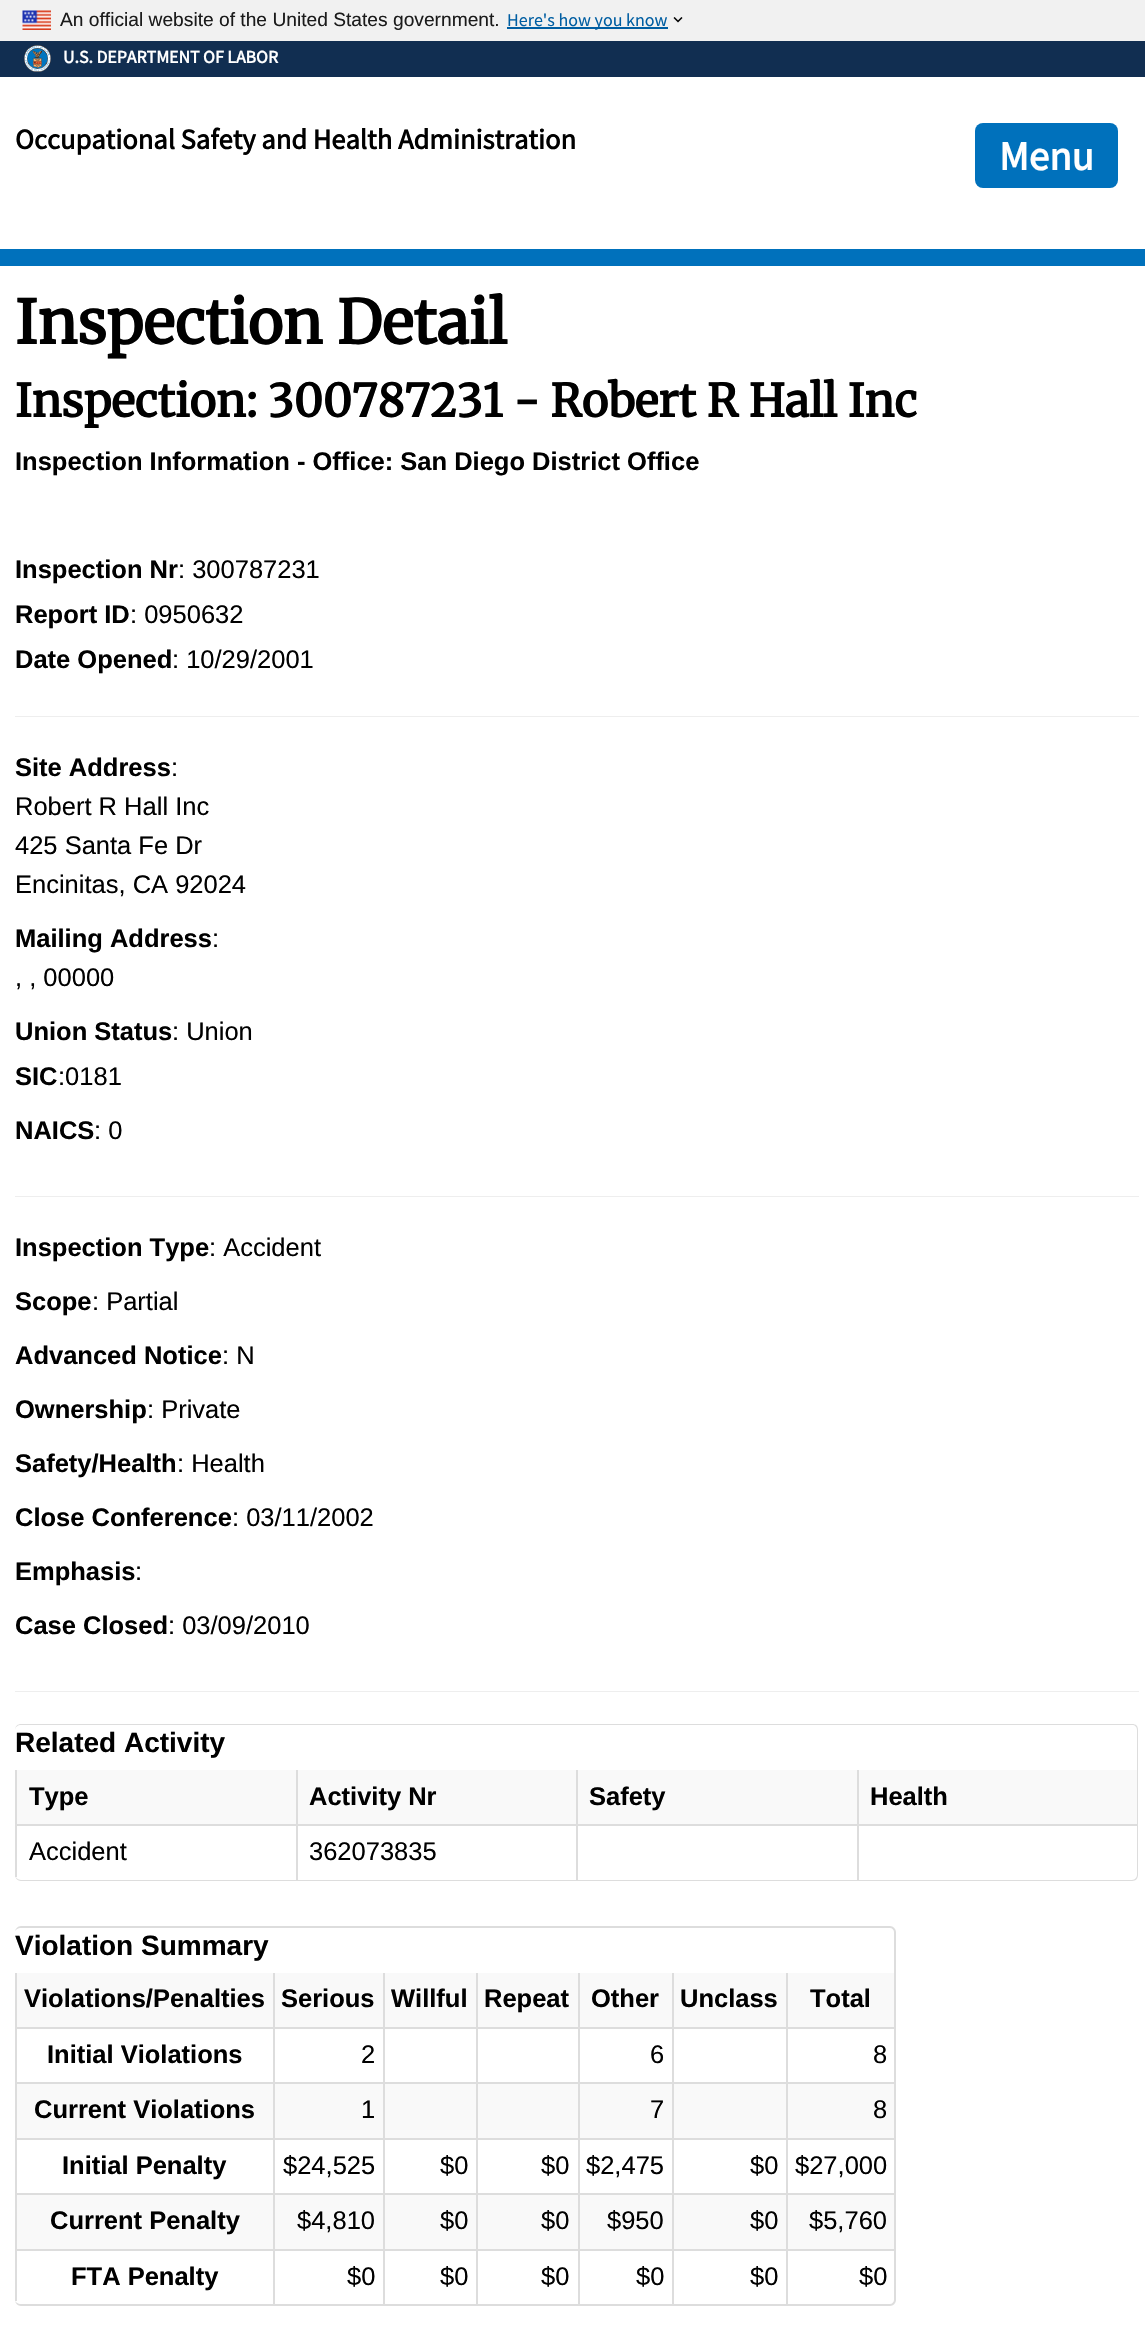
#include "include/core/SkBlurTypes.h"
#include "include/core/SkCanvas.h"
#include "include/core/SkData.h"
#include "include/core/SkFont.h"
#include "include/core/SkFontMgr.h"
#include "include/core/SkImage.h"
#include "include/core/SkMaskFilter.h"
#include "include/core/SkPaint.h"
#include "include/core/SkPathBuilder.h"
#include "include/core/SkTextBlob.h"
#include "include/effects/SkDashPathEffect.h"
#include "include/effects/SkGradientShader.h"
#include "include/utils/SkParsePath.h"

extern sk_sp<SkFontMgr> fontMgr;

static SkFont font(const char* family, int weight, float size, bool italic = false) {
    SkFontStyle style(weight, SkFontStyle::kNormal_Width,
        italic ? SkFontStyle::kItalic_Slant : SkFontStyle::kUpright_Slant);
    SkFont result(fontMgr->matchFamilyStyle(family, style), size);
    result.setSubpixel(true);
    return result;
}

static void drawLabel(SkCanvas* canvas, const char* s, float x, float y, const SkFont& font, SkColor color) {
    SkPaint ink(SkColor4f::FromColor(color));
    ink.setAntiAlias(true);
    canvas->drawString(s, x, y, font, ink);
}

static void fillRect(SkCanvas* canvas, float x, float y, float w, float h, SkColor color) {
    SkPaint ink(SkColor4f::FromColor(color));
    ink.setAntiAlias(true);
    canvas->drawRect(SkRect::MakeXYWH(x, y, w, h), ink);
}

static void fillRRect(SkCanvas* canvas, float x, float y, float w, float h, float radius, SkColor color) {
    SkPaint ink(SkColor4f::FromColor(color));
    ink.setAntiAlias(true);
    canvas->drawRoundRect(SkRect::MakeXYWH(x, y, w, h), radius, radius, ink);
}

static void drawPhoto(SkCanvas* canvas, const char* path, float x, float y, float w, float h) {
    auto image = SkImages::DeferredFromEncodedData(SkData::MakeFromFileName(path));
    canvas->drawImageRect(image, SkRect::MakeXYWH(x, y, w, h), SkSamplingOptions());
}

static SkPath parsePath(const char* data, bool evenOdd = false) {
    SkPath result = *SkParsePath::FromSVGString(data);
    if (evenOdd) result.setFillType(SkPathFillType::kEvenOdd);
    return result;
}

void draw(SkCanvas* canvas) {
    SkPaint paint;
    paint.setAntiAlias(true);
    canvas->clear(0xFFFFFFFF);
    fillRect(canvas, 0, 0, 1145, 41, 0xFFF1F1F1);
    drawPhoto(canvas, "assets/img1.png", 22, 10, 29, 20);
    SkFont font1 = font("Liberation Sans", 400, 19.2f);
    drawLabel(canvas, "An official website of the United States government.", 60, 26, font1, 0xFF1B1B1B);
    drawPhoto(canvas, "assets/img2.png", 673, 17, 10, 6);
    fillRect(canvas, 507, 27, 161, 2, 0xFF005EA2);
    SkFont font2 = font("Source Sans Pro", 400, 18);
    drawLabel(canvas, "Here's how you know", 507, 26, font2, 0xFF005EA2);
    fillRect(canvas, 0, 41, 1145, 36, 0xFF112E51);
    drawPhoto(canvas, "assets/img3.png", 24, 45, 27, 27);
    SkFont font3 = font("Source Sans Pro", 700, 17.8f);
    drawLabel(canvas, "U.S. DEPARTMENT OF LABOR", 63, 63, font3, 0xFFFFFFFF);
    SkFont font4 = font("Source Sans Pro", 700, 28.5f);
    drawLabel(canvas, "Occupational Safety and Health Administration", 15, 149, font4, 0xFF000000);
    fillRRect(canvas, 975, 123, 143, 65, 8, 0xFF0071BC);
    SkFont font5 = font("Source Sans Pro", 700, 41);
    drawLabel(canvas, "Menu", 999, 170, font5, 0xFFFFFFFF);
    fillRect(canvas, 0, 249, 1145, 17, 0xFF0071BC);
    SkFont font6 = font("Merriweather", 700, 60);
    drawLabel(canvas, "Inspection Detail", 15, 344, font6, 0xFF000000);
    SkFont font7 = font("Merriweather", 700, 45);
    drawLabel(canvas, "Inspection: 300787231 - Robert R Hall Inc", 15, 417, font7, 0xFF000000);
    SkFont font8 = font("Liberation Sans", 700, 25.5f);
    drawLabel(canvas, "Inspection Information - Office: San Diego District Office", 15, 470, font8, 0xFF000000);
    drawLabel(canvas, "Inspection Nr", 15, 578, font8, 0xFF000000);
    SkFont font9 = font("Liberation Sans", 400, 25.5f);
    drawLabel(canvas, ": 300787231", 178, 578, font9, 0xFF000000);
    drawLabel(canvas, "Report ID", 15, 623, font8, 0xFF000000);
    drawLabel(canvas, ": 0950632", 130, 623, font9, 0xFF000000);
    drawLabel(canvas, "Date Opened", 15, 668, font8, 0xFF000000);
    drawLabel(canvas, ": 10/29/2001", 172, 668, font9, 0xFF000000);
    fillRect(canvas, 15, 716, 1124, 1, 0xFFEEEEEE);
    drawLabel(canvas, "Site Address", 15, 776, font8, 0xFF000000);
    drawLabel(canvas, ":", 171, 776, font9, 0xFF000000);
    drawLabel(canvas, "Robert R Hall Inc", 15, 815, font9, 0xFF000000);
    drawLabel(canvas, "425 Santa Fe Dr", 15, 854, font9, 0xFF000000);
    drawLabel(canvas, "Encinitas, CA 92024", 15, 893, font9, 0xFF000000);
    drawLabel(canvas, "Mailing Address", 15, 947, font8, 0xFF000000);
    drawLabel(canvas, ":", 212, 947, font9, 0xFF000000);
    drawLabel(canvas, ", , 00000", 15, 986, font9, 0xFF000000);
    drawLabel(canvas, "Union Status", 15, 1040, font8, 0xFF000000);
    drawLabel(canvas, ": Union", 172, 1040, font9, 0xFF000000);
    drawLabel(canvas, "SIC", 15, 1085, font8, 0xFF000000);
    drawLabel(canvas, ":0181", 58, 1085, font9, 0xFF000000);
    drawLabel(canvas, "NAICS", 15, 1139, font8, 0xFF000000);
    drawLabel(canvas, ": 0", 94, 1139, font9, 0xFF000000);
    fillRect(canvas, 15, 1196, 1124, 1, 0xFFEEEEEE);
    drawLabel(canvas, "Inspection Type", 15, 1256, font8, 0xFF000000);
    drawLabel(canvas, ": Accident", 209, 1256, font9, 0xFF000000);
    drawLabel(canvas, "Scope", 15, 1310, font8, 0xFF000000);
    drawLabel(canvas, ": Partial", 92, 1310, font9, 0xFF000000);
    drawLabel(canvas, "Advanced Notice", 15, 1364, font8, 0xFF000000);
    drawLabel(canvas, ": N", 222, 1364, font9, 0xFF000000);
    drawLabel(canvas, "Ownership", 15, 1418, font8, 0xFF000000);
    drawLabel(canvas, ": Private", 147, 1418, font9, 0xFF000000);
    drawLabel(canvas, "Safety/Health", 15, 1472, font8, 0xFF000000);
    drawLabel(canvas, ": Health", 177, 1472, font9, 0xFF000000);
    drawLabel(canvas, "Close Conference", 15, 1526, font8, 0xFF000000);
    drawLabel(canvas, ": 03/11/2002", 232, 1526, font9, 0xFF000000);
    drawLabel(canvas, "Emphasis", 15, 1580, font8, 0xFF000000);
    drawLabel(canvas, ":", 135, 1580, font9, 0xFF000000);
    drawLabel(canvas, "Case Closed", 15, 1634, font8, 0xFF000000);
    drawLabel(canvas, ": 03/09/2010", 168, 1634, font9, 0xFF000000);
    fillRect(canvas, 15, 1691, 1124, 1, 0xFFEEEEEE);
    paint.setColor(0xFFDDDDDD);
    canvas->drawPath(parsePath("M21 1724H1132C1136 1724 1138 1726 1138 1730V1875C1138 1878 1136 1881 1132 1881H21C18 1881 15 1878 15 1875V1730C15 1726 18 1724 21 1724ZM21 1725H1132C1135 1725 1137 1727 1137 1730V1875C1137 1877 1135 1880 1132 1880H21C18 1880 15 1877 15 1875V1730C15 1727 18 1725 21 1725Z", true), paint);
    SkFont font10 = font("Liberation Sans", 700, 28);
    drawLabel(canvas, "Related Activity", 15, 1752, font10, 0xFF000000);
    fillRect(canvas, 17, 1770, 279, 54, 0xFFF9F9F9);
    fillRect(canvas, 15, 1770, 2, 54, 0xFFDDDDDD);
    drawLabel(canvas, "Type", 29, 1805, font8, 0xFF000000);
    fillRect(canvas, 298, 1770, 278, 54, 0xFFF9F9F9);
    fillRect(canvas, 296, 1770, 2, 54, 0xFFDDDDDD);
    drawLabel(canvas, "Activity Nr", 309, 1805, font8, 0xFF000000);
    fillRect(canvas, 578, 1770, 279, 54, 0xFFF9F9F9);
    fillRect(canvas, 576, 1770, 2, 54, 0xFFDDDDDD);
    drawLabel(canvas, "Safety", 589, 1805, font8, 0xFF000000);
    fillRect(canvas, 859, 1770, 278, 54, 0xFFF9F9F9);
    fillRect(canvas, 857, 1770, 2, 54, 0xFFDDDDDD);
    drawLabel(canvas, "Health", 870, 1805, font8, 0xFF000000);
    fillRect(canvas, 15, 1824, 1122, 2, 0xFFDDDDDD);
    fillRect(canvas, 15, 1824, 2, 53, 0xFFDDDDDD);
    drawLabel(canvas, "Accident", 29, 1860, font9, 0xFF000000);
    fillRect(canvas, 296, 1824, 2, 56, 0xFFDDDDDD);
    drawLabel(canvas, "362073835", 309, 1860, font9, 0xFF000000);
    fillRect(canvas, 576, 1824, 2, 56, 0xFFDDDDDD);
    fillRect(canvas, 857, 1824, 2, 56, 0xFFDDDDDD);
    canvas->drawPath(parsePath("M21 1926H890C893 1926 896 1929 896 1932V2300C896 2303 893 2306 890 2306H21C18 2306 15 2303 15 2300V1932C15 1929 18 1926 21 1926ZM21 1928H890C892 1928 894 1930 894 1932V2300C894 2302 892 2304 890 2304H21C18 2304 15 2302 15 2300V1932C15 1930 18 1928 21 1928Z", true), paint);
    drawLabel(canvas, "Violation Summary", 15, 1955, font10, 0xFF000000);
    fillRect(canvas, 17, 1973, 256, 54, 0xFFF9F9F9);
    fillRect(canvas, 15, 1973, 2, 54, 0xFFDDDDDD);
    drawLabel(canvas, "Violations/Penalties", 24, 2007, font8, 0xFF000000);
    fillRect(canvas, 275, 1973, 108, 54, 0xFFF9F9F9);
    fillRect(canvas, 273, 1973, 2, 54, 0xFFDDDDDD);
    drawLabel(canvas, "Serious", 281, 2007, font8, 0xFF000000);
    fillRect(canvas, 385, 1973, 91, 54, 0xFFF9F9F9);
    fillRect(canvas, 383, 1973, 2, 54, 0xFFDDDDDD);
    drawLabel(canvas, "Willful", 391, 2007, font8, 0xFF000000);
    fillRect(canvas, 478, 1973, 100, 54, 0xFFF9F9F9);
    fillRect(canvas, 476, 1973, 2, 54, 0xFFDDDDDD);
    drawLabel(canvas, "Repeat", 484, 2007, font8, 0xFF000000);
    fillRect(canvas, 580, 1973, 92, 54, 0xFFF9F9F9);
    fillRect(canvas, 578, 1973, 2, 54, 0xFFDDDDDD);
    drawLabel(canvas, "Other", 591, 2007, font8, 0xFF000000);
    fillRect(canvas, 674, 1973, 112, 54, 0xFFF9F9F9);
    fillRect(canvas, 672, 1973, 2, 54, 0xFFDDDDDD);
    drawLabel(canvas, "Unclass", 680, 2007, font8, 0xFF000000);
    fillRect(canvas, 788, 1973, 106, 54, 0xFFF9F9F9);
    fillRect(canvas, 786, 1973, 2, 54, 0xFFDDDDDD);
    drawLabel(canvas, "Total", 810, 2007, font8, 0xFF000000);
    fillRect(canvas, 15, 2027, 879, 2, 0xFFDDDDDD);
    fillRect(canvas, 15, 2027, 2, 55, 0xFFDDDDDD);
    drawLabel(canvas, "Initial Violations", 47, 2063, font8, 0xFF000000);
    fillRect(canvas, 273, 2027, 2, 55, 0xFFDDDDDD);
    drawLabel(canvas, "2", 361, 2063, font9, 0xFF000000);
    fillRect(canvas, 383, 2027, 2, 55, 0xFFDDDDDD);
    fillRect(canvas, 476, 2027, 2, 55, 0xFFDDDDDD);
    fillRect(canvas, 578, 2027, 2, 55, 0xFFDDDDDD);
    drawLabel(canvas, "6", 650, 2063, font9, 0xFF000000);
    fillRect(canvas, 672, 2027, 2, 55, 0xFFDDDDDD);
    fillRect(canvas, 786, 2027, 2, 55, 0xFFDDDDDD);
    drawLabel(canvas, "8", 873, 2063, font9, 0xFF000000);
    fillRect(canvas, 17, 2084, 256, 54, 0xFFF9F9F9);
    fillRect(canvas, 15, 2082, 879, 2, 0xFFDDDDDD);
    fillRect(canvas, 15, 2082, 2, 56, 0xFFDDDDDD);
    drawLabel(canvas, "Current Violations", 34, 2118, font8, 0xFF000000);
    fillRect(canvas, 275, 2084, 108, 54, 0xFFF9F9F9);
    fillRect(canvas, 273, 2082, 2, 56, 0xFFDDDDDD);
    drawLabel(canvas, "1", 361, 2118, font9, 0xFF000000);
    fillRect(canvas, 385, 2084, 91, 54, 0xFFF9F9F9);
    fillRect(canvas, 383, 2082, 2, 56, 0xFFDDDDDD);
    fillRect(canvas, 478, 2084, 100, 54, 0xFFF9F9F9);
    fillRect(canvas, 476, 2082, 2, 56, 0xFFDDDDDD);
    fillRect(canvas, 580, 2084, 92, 54, 0xFFF9F9F9);
    fillRect(canvas, 578, 2082, 2, 56, 0xFFDDDDDD);
    drawLabel(canvas, "7", 650, 2118, font9, 0xFF000000);
    fillRect(canvas, 674, 2084, 112, 54, 0xFFF9F9F9);
    fillRect(canvas, 672, 2082, 2, 56, 0xFFDDDDDD);
    fillRect(canvas, 788, 2084, 106, 54, 0xFFF9F9F9);
    fillRect(canvas, 786, 2082, 2, 56, 0xFFDDDDDD);
    drawLabel(canvas, "8", 873, 2118, font9, 0xFF000000);
    fillRect(canvas, 15, 2138, 879, 2, 0xFFDDDDDD);
    fillRect(canvas, 15, 2138, 2, 55, 0xFFDDDDDD);
    drawLabel(canvas, "Initial Penalty", 62, 2174, font8, 0xFF000000);
    fillRect(canvas, 273, 2138, 2, 55, 0xFFDDDDDD);
    drawLabel(canvas, "$24,525", 283, 2174, font9, 0xFF000000);
    fillRect(canvas, 383, 2138, 2, 55, 0xFFDDDDDD);
    drawLabel(canvas, "$0", 440, 2174, font9, 0xFF000000);
    fillRect(canvas, 476, 2138, 2, 55, 0xFFDDDDDD);
    drawLabel(canvas, "$0", 541, 2174, font9, 0xFF000000);
    fillRect(canvas, 578, 2138, 2, 55, 0xFFDDDDDD);
    drawLabel(canvas, "$2,475", 586, 2174, font9, 0xFF000000);
    fillRect(canvas, 672, 2138, 2, 55, 0xFFDDDDDD);
    drawLabel(canvas, "$0", 750, 2174, font9, 0xFF000000);
    fillRect(canvas, 786, 2138, 2, 55, 0xFFDDDDDD);
    drawLabel(canvas, "$27,000", 795, 2174, font9, 0xFF000000);
    fillRect(canvas, 17, 2195, 256, 54, 0xFFF9F9F9);
    fillRect(canvas, 15, 2193, 879, 2, 0xFFDDDDDD);
    fillRect(canvas, 15, 2193, 2, 56, 0xFFDDDDDD);
    drawLabel(canvas, "Current Penalty", 50, 2229, font8, 0xFF000000);
    fillRect(canvas, 275, 2195, 108, 54, 0xFFF9F9F9);
    fillRect(canvas, 273, 2193, 2, 56, 0xFFDDDDDD);
    drawLabel(canvas, "$4,810", 297, 2229, font9, 0xFF000000);
    fillRect(canvas, 385, 2195, 91, 54, 0xFFF9F9F9);
    fillRect(canvas, 383, 2193, 2, 56, 0xFFDDDDDD);
    drawLabel(canvas, "$0", 440, 2229, font9, 0xFF000000);
    fillRect(canvas, 478, 2195, 100, 54, 0xFFF9F9F9);
    fillRect(canvas, 476, 2193, 2, 56, 0xFFDDDDDD);
    drawLabel(canvas, "$0", 541, 2229, font9, 0xFF000000);
    fillRect(canvas, 580, 2195, 92, 54, 0xFFF9F9F9);
    fillRect(canvas, 578, 2193, 2, 56, 0xFFDDDDDD);
    drawLabel(canvas, "$950", 607, 2229, font9, 0xFF000000);
    fillRect(canvas, 674, 2195, 112, 54, 0xFFF9F9F9);
    fillRect(canvas, 672, 2193, 2, 56, 0xFFDDDDDD);
    drawLabel(canvas, "$0", 750, 2229, font9, 0xFF000000);
    fillRect(canvas, 788, 2195, 106, 54, 0xFFF9F9F9);
    fillRect(canvas, 786, 2193, 2, 56, 0xFFDDDDDD);
    drawLabel(canvas, "$5,760", 809, 2229, font9, 0xFF000000);
    fillRect(canvas, 15, 2249, 879, 2, 0xFFDDDDDD);
    fillRect(canvas, 15, 2249, 2, 52, 0xFFDDDDDD);
    drawLabel(canvas, "FTA Penalty", 71, 2285, font8, 0xFF000000);
    fillRect(canvas, 273, 2249, 2, 55, 0xFFDDDDDD);
    drawLabel(canvas, "$0", 347, 2285, font9, 0xFF000000);
    fillRect(canvas, 383, 2249, 2, 55, 0xFFDDDDDD);
    drawLabel(canvas, "$0", 440, 2285, font9, 0xFF000000);
    fillRect(canvas, 476, 2249, 2, 55, 0xFFDDDDDD);
    drawLabel(canvas, "$0", 541, 2285, font9, 0xFF000000);
    fillRect(canvas, 578, 2249, 2, 55, 0xFFDDDDDD);
    drawLabel(canvas, "$0", 636, 2285, font9, 0xFF000000);
    fillRect(canvas, 672, 2249, 2, 55, 0xFFDDDDDD);
    drawLabel(canvas, "$0", 750, 2285, font9, 0xFF000000);
    fillRect(canvas, 786, 2249, 2, 55, 0xFFDDDDDD);
    drawLabel(canvas, "$0", 859, 2285, font9, 0xFF000000);
}
